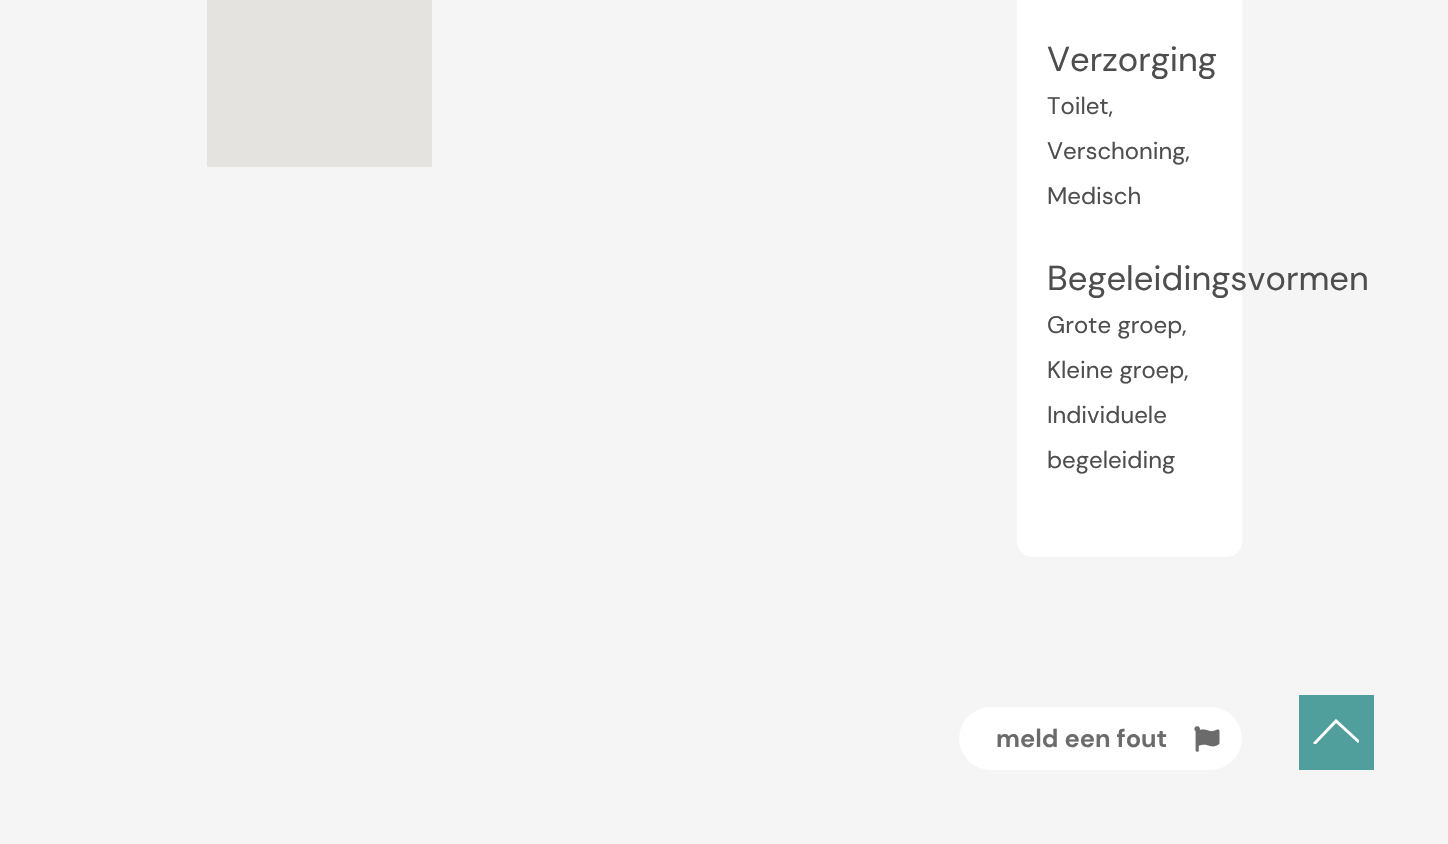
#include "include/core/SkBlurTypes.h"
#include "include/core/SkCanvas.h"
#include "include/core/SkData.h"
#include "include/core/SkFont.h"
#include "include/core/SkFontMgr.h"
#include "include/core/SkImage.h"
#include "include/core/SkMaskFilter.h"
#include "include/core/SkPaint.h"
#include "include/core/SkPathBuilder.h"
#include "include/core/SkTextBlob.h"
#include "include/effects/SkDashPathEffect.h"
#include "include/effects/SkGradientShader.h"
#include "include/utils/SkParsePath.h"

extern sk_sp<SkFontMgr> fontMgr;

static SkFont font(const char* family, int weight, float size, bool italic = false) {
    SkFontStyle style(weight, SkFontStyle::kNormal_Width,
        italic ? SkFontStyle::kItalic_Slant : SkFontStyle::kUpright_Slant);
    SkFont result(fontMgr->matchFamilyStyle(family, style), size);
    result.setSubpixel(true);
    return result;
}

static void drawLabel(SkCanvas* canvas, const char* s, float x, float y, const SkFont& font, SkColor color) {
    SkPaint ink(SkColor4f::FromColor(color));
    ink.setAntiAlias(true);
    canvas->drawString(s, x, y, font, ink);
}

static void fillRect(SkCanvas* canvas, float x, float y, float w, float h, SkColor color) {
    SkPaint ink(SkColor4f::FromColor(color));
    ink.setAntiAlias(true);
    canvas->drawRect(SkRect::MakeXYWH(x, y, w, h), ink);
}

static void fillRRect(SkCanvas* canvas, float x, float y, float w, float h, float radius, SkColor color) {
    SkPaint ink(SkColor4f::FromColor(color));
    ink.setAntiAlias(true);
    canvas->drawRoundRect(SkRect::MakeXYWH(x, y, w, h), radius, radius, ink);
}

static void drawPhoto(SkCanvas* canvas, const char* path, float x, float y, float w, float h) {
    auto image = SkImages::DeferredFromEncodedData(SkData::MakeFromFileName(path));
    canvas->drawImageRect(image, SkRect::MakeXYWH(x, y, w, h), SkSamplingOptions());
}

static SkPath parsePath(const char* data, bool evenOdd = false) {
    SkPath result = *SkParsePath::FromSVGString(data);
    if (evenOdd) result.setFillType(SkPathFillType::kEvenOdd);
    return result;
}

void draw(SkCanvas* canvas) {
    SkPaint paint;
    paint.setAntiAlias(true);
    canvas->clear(0xFFF5F5F5);
    fillRect(canvas, 207, 0, 225, 167, 0xFFE5E3DF);
    fillRRect(canvas, 1017, -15, 225, 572, 15, 0xFFFFFFFF);
    SkFont font1 = font("DM Sans", 400, 34.5f);
    drawLabel(canvas, "Verzorging", 1047, 71, font1, 0xFF4E4E4E);
    SkFont font2 = font("DM Sans", 400, 24);
    drawLabel(canvas, "Toilet,", 1047, 114, font2, 0xFF4E4E4E);
    drawLabel(canvas, "Verschoning,", 1047, 159, font2, 0xFF4E4E4E);
    drawLabel(canvas, "Medisch", 1047, 204, font2, 0xFF4E4E4E);
    drawLabel(canvas, "Begeleidingsvormen", 1047, 290, font1, 0xFF4E4E4E);
    drawLabel(canvas, "Grote groep,", 1047, 333, font2, 0xFF4E4E4E);
    drawLabel(canvas, "Kleine groep,", 1047, 378, font2, 0xFF4E4E4E);
    drawLabel(canvas, "Individuele", 1047, 423, font2, 0xFF4E4E4E);
    drawLabel(canvas, "begeleiding", 1047, 468, font2, 0xFF4E4E4E);
    fillRRect(canvas, 959, 707, 283, 63, 31.5f, 0xFFFFFFFF);
    SkFont font3 = font("DM Sans", 700, 25.5f);
    drawLabel(canvas, "meld een fout", 996, 747, font3, 0xFF6B6B6B);
    drawPhoto(canvas, "assets/img1.png", 1194, 726, 26, 26);
    fillRect(canvas, 1299, 695, 75, 75, 0xFF509F9C);
    canvas->save();
    canvas->clipRect(SkRect::MakeXYWH(1313, 719, 46, 25));
    paint.setStroke(true);
    paint.setStrokeWidth(3);
    paint.setColor(0xFFFFFFFF);
    canvas->drawPath(parsePath("M1314 744L1336 721L1359 742"), paint);
    canvas->restore();
}
